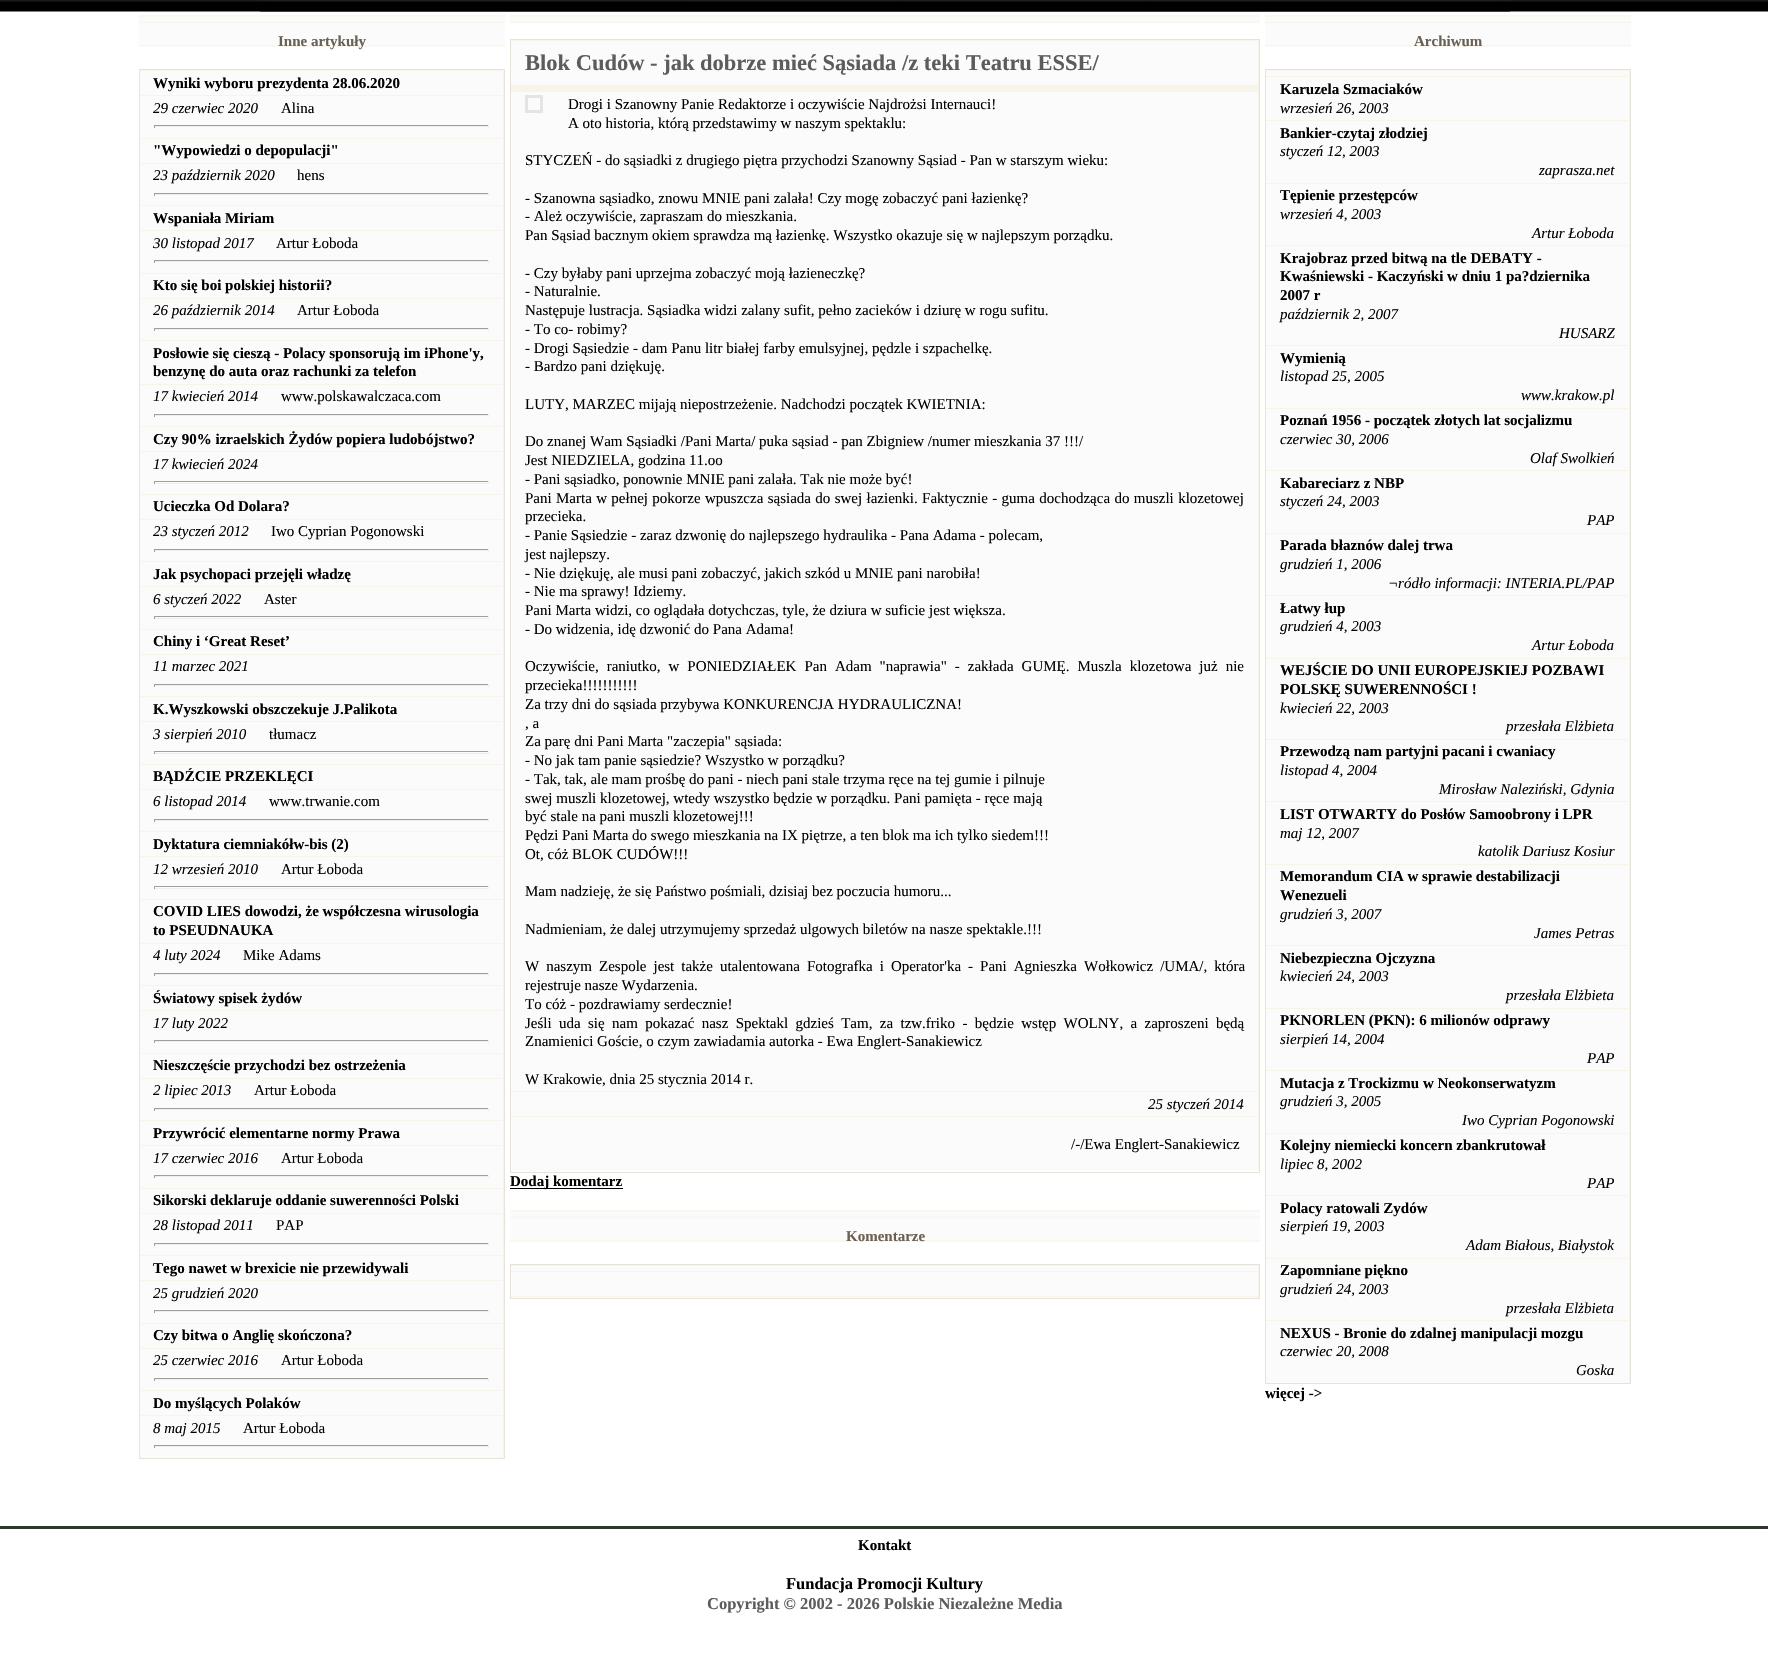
#include "include/core/SkBlurTypes.h"
#include "include/core/SkCanvas.h"
#include "include/core/SkData.h"
#include "include/core/SkFont.h"
#include "include/core/SkFontMgr.h"
#include "include/core/SkImage.h"
#include "include/core/SkMaskFilter.h"
#include "include/core/SkPaint.h"
#include "include/core/SkPathBuilder.h"
#include "include/core/SkTextBlob.h"
#include "include/effects/SkDashPathEffect.h"
#include "include/effects/SkGradientShader.h"
#include "include/utils/SkParsePath.h"

extern sk_sp<SkFontMgr> fontMgr;

static SkFont font(const char* family, int weight, float size, bool italic = false) {
    SkFontStyle style(weight, SkFontStyle::kNormal_Width,
        italic ? SkFontStyle::kItalic_Slant : SkFontStyle::kUpright_Slant);
    SkFont result(fontMgr->matchFamilyStyle(family, style), size);
    result.setSubpixel(true);
    return result;
}

static void drawLabel(SkCanvas* canvas, const char* s, float x, float y, const SkFont& font, SkColor color) {
    SkPaint ink(SkColor4f::FromColor(color));
    ink.setAntiAlias(true);
    canvas->drawString(s, x, y, font, ink);
}

static void drawTracked(SkCanvas* canvas, const char* s, float x, float y, const SkFont& font, const SkPaint& ink, float letter, float word) {
    std::vector<SkGlyphID> glyphs(font.countText(s, strlen(s), SkTextEncoding::kUTF8));
    std::vector<float> xs(glyphs.size());
    font.textToGlyphs(s, strlen(s), SkTextEncoding::kUTF8, glyphs);
    font.getXPos(glyphs, xs, x);
    float extra = 0;
    for (size_t i = 0; i < glyphs.size(); i++) {
        xs[i] += extra;
        extra += letter + word * (glyphs[i] == font.unicharToGlyph(' '));
    }
    canvas->drawTextBlob(SkTextBlob::MakeFromPosHGlyphs(glyphs, xs, y, font), 0, 0, ink);
}

static void fillRect(SkCanvas* canvas, float x, float y, float w, float h, SkColor color) {
    SkPaint ink(SkColor4f::FromColor(color));
    ink.setAntiAlias(true);
    canvas->drawRect(SkRect::MakeXYWH(x, y, w, h), ink);
}

static void drawPhoto(SkCanvas* canvas, const char* path, float x, float y, float w, float h) {
    auto image = SkImages::DeferredFromEncodedData(SkData::MakeFromFileName(path));
    canvas->drawImageRect(image, SkRect::MakeXYWH(x, y, w, h), SkSamplingOptions());
}

void draw(SkCanvas* canvas) {
    SkPaint paint;
    paint.setAntiAlias(true);
    canvas->clear(0xFFFFFFFF);
    drawPhoto(canvas, "assets/img1.png", 0, 0, 1768, 12);
    drawPhoto(canvas, "assets/img2.png", 260, 0, 1250, 12);
    drawPhoto(canvas, "assets/img3.png", 138, 15, 2, 32);
    drawPhoto(canvas, "assets/img4.png", 140, 15, 364, 32);
    SkFont font1 = font("Liberation Serif", 700, 15);
    drawLabel(canvas, "Inne artykuły", 278, 46, font1, 0xFF6B6153);
    drawPhoto(canvas, "assets/img5.png", 504, 15, 1, 32);
    paint.setStroke(true);
    paint.setStrokeWidth(1);
    paint.setColor(0xFFE7E3DA);
    canvas->drawRect(SkRect::MakeXYWH(139.5f, 69.5f, 365, 1389), paint);
    fillRect(canvas, 140, 71, 363, 24, 0xFFFBFBFB);
    fillRect(canvas, 140, 70, 364, 1, 0xFFF8F4E9);
    fillRect(canvas, 503, 70, 1, 25, 0xFFF8F4E9);
    drawLabel(canvas, "Wyniki wyboru prezydenta 28.06.2020", 153, 88, font1, 0xFF000000);
    fillRect(canvas, 140, 96, 363, 42, 0xFFFBFBFB);
    fillRect(canvas, 140, 95, 364, 1, 0xFFF8F4E9);
    fillRect(canvas, 503, 95, 1, 43, 0xFFF8F4E9);
    SkFont font2 = font("Liberation Serif", 400, 15, true);
    drawLabel(canvas, "29 czerwiec 2020", 153, 113, font2, 0xFF000000);
    SkFont font3 = font("Liberation Serif", 400, 15);
    drawLabel(canvas, "Alina", 281, 113, font3, 0xFF000000);
    fillRect(canvas, 154, 125, 335, 1, 0xFF9F9F9F);
    fillRect(canvas, 488, 125, 1, 3, 0xFFEEEEEE);
    fillRect(canvas, 154, 126, 335, 1, 0xFFEEEEEE);
    fillRect(canvas, 154, 125, 1, 3, 0xFF9F9F9F);
    fillRect(canvas, 140, 139, 363, 24, 0xFFFBFBFB);
    fillRect(canvas, 140, 138, 364, 1, 0xFFF8F4E9);
    fillRect(canvas, 503, 138, 1, 25, 0xFFF8F4E9);
    drawLabel(canvas, "\"Wypowiedzi o depopulacji\"", 153, 155, font1, 0xFF000000);
    fillRect(canvas, 140, 164, 363, 41, 0xFFFBFBFB);
    fillRect(canvas, 140, 163, 364, 1, 0xFFF8F4E9);
    fillRect(canvas, 503, 163, 1, 42, 0xFFF8F4E9);
    drawLabel(canvas, "23 październik 2020", 153, 180, font2, 0xFF000000);
    drawLabel(canvas, "hens", 297, 180, font3, 0xFF000000);
    fillRect(canvas, 154, 193, 335, 1, 0xFF9F9F9F);
    fillRect(canvas, 488, 193, 1, 3, 0xFFEEEEEE);
    fillRect(canvas, 154, 194, 335, 1, 0xFFEEEEEE);
    fillRect(canvas, 154, 193, 1, 3, 0xFF9F9F9F);
    fillRect(canvas, 140, 206, 363, 24, 0xFFFBFBFB);
    fillRect(canvas, 140, 205, 364, 1, 0xFFF8F4E9);
    fillRect(canvas, 503, 205, 1, 25, 0xFFF8F4E9);
    drawLabel(canvas, "Wspaniała Miriam", 153, 223, font1, 0xFF000000);
    fillRect(canvas, 140, 231, 363, 42, 0xFFFBFBFB);
    fillRect(canvas, 140, 230, 364, 1, 0xFFF8F4E9);
    fillRect(canvas, 503, 230, 1, 43, 0xFFF8F4E9);
    drawLabel(canvas, "30 listopad 2017", 153, 248, font2, 0xFF000000);
    drawLabel(canvas, "Artur Łoboda", 276, 248, font3, 0xFF000000);
    fillRect(canvas, 154, 260, 335, 1, 0xFF9F9F9F);
    fillRect(canvas, 488, 260, 1, 3, 0xFFEEEEEE);
    fillRect(canvas, 154, 261, 335, 1, 0xFFEEEEEE);
    fillRect(canvas, 154, 260, 1, 3, 0xFF9F9F9F);
    fillRect(canvas, 140, 274, 363, 24, 0xFFFBFBFB);
    fillRect(canvas, 140, 273, 364, 1, 0xFFF8F4E9);
    fillRect(canvas, 503, 273, 1, 25, 0xFFF8F4E9);
    drawLabel(canvas, "Kto się boi polskiej historii?", 153, 290, font1, 0xFF000000);
    fillRect(canvas, 140, 299, 363, 41, 0xFFFBFBFB);
    fillRect(canvas, 140, 298, 364, 1, 0xFFF8F4E9);
    fillRect(canvas, 503, 298, 1, 42, 0xFFF8F4E9);
    drawLabel(canvas, "26 październik 2014", 153, 315, font2, 0xFF000000);
    drawLabel(canvas, "Artur Łoboda", 297, 315, font3, 0xFF000000);
    fillRect(canvas, 154, 328, 335, 1, 0xFF9F9F9F);
    fillRect(canvas, 488, 328, 1, 3, 0xFFEEEEEE);
    fillRect(canvas, 154, 329, 335, 1, 0xFFEEEEEE);
    fillRect(canvas, 154, 328, 1, 3, 0xFF9F9F9F);
    fillRect(canvas, 140, 341, 363, 43, 0xFFFBFBFB);
    fillRect(canvas, 140, 340, 364, 1, 0xFFF8F4E9);
    fillRect(canvas, 503, 340, 1, 44, 0xFFF8F4E9);
    drawLabel(canvas, "Posłowie się cieszą - Polacy sponsorują im iPhone'y,", 153, 358, font1, 0xFF000000);
    drawLabel(canvas, "benzynę do auta oraz rachunki za telefon", 153, 376, font1, 0xFF000000);
    fillRect(canvas, 140, 385, 363, 41, 0xFFFBFBFB);
    fillRect(canvas, 140, 384, 364, 1, 0xFFF8F4E9);
    fillRect(canvas, 503, 384, 1, 42, 0xFFF8F4E9);
    drawLabel(canvas, "17 kwiecień 2014", 153, 401, font2, 0xFF000000);
    drawLabel(canvas, "www.polskawalczaca.com", 281, 401, font3, 0xFF000000);
    fillRect(canvas, 154, 414, 335, 1, 0xFF9F9F9F);
    fillRect(canvas, 488, 414, 1, 3, 0xFFEEEEEE);
    fillRect(canvas, 154, 415, 335, 1, 0xFFEEEEEE);
    fillRect(canvas, 154, 414, 1, 3, 0xFF9F9F9F);
    fillRect(canvas, 140, 427, 363, 24, 0xFFFBFBFB);
    fillRect(canvas, 140, 426, 364, 1, 0xFFF8F4E9);
    fillRect(canvas, 503, 426, 1, 25, 0xFFF8F4E9);
    drawLabel(canvas, "Czy 90% izraelskich Żydów popiera ludobójstwo?", 153, 444, font1, 0xFF000000);
    fillRect(canvas, 140, 452, 363, 42, 0xFFFBFBFB);
    fillRect(canvas, 140, 451, 364, 1, 0xFFF8F4E9);
    fillRect(canvas, 503, 451, 1, 43, 0xFFF8F4E9);
    drawLabel(canvas, "17 kwiecień 2024", 153, 469, font2, 0xFF000000);
    fillRect(canvas, 154, 481, 335, 1, 0xFF9F9F9F);
    fillRect(canvas, 488, 481, 1, 3, 0xFFEEEEEE);
    fillRect(canvas, 154, 483, 335, 1, 0xFFEEEEEE);
    fillRect(canvas, 154, 481, 1, 3, 0xFF9F9F9F);
    fillRect(canvas, 140, 495, 363, 24, 0xFFFBFBFB);
    fillRect(canvas, 140, 494, 364, 1, 0xFFF8F4E9);
    fillRect(canvas, 503, 494, 1, 25, 0xFFF8F4E9);
    drawLabel(canvas, "Ucieczka Od Dolara?", 153, 511, font1, 0xFF000000);
    fillRect(canvas, 140, 520, 363, 41, 0xFFFBFBFB);
    fillRect(canvas, 140, 519, 364, 1, 0xFFF8F4E9);
    fillRect(canvas, 503, 519, 1, 42, 0xFFF8F4E9);
    drawLabel(canvas, "23 styczeń 2012", 153, 536, font2, 0xFF000000);
    drawLabel(canvas, "Iwo Cyprian Pogonowski", 271, 536, font3, 0xFF000000);
    fillRect(canvas, 154, 549, 335, 1, 0xFF9F9F9F);
    fillRect(canvas, 488, 549, 1, 3, 0xFFEEEEEE);
    fillRect(canvas, 154, 550, 335, 1, 0xFFEEEEEE);
    fillRect(canvas, 154, 549, 1, 3, 0xFF9F9F9F);
    fillRect(canvas, 140, 562, 363, 24, 0xFFFBFBFB);
    fillRect(canvas, 140, 561, 364, 1, 0xFFF8F4E9);
    fillRect(canvas, 503, 561, 1, 25, 0xFFF8F4E9);
    drawLabel(canvas, "Jak psychopaci przejęli władzę", 153, 579, font1, 0xFF000000);
    fillRect(canvas, 140, 587, 363, 42, 0xFFFBFBFB);
    fillRect(canvas, 140, 586, 364, 1, 0xFFF8F4E9);
    fillRect(canvas, 503, 586, 1, 43, 0xFFF8F4E9);
    drawLabel(canvas, "6 styczeń 2022", 153, 604, font2, 0xFF000000);
    drawLabel(canvas, "Aster", 264, 604, font3, 0xFF000000);
    fillRect(canvas, 154, 616, 335, 1, 0xFF9F9F9F);
    fillRect(canvas, 488, 616, 1, 3, 0xFFEEEEEE);
    fillRect(canvas, 154, 618, 335, 1, 0xFFEEEEEE);
    fillRect(canvas, 154, 616, 1, 3, 0xFF9F9F9F);
    fillRect(canvas, 140, 630, 363, 24, 0xFFFBFBFB);
    fillRect(canvas, 140, 629, 364, 1, 0xFFF8F4E9);
    fillRect(canvas, 503, 629, 1, 25, 0xFFF8F4E9);
    drawLabel(canvas, "Chiny i ‘Great Reset’", 153, 646, font1, 0xFF000000);
    fillRect(canvas, 140, 655, 363, 41, 0xFFFBFBFB);
    fillRect(canvas, 140, 654, 364, 1, 0xFFF8F4E9);
    fillRect(canvas, 503, 654, 1, 42, 0xFFF8F4E9);
    drawLabel(canvas, "11 marzec 2021", 153, 671, font2, 0xFF000000);
    fillRect(canvas, 154, 684, 335, 1, 0xFF9F9F9F);
    fillRect(canvas, 488, 684, 1, 3, 0xFFEEEEEE);
    fillRect(canvas, 154, 685, 335, 1, 0xFFEEEEEE);
    fillRect(canvas, 154, 684, 1, 3, 0xFF9F9F9F);
    fillRect(canvas, 140, 697, 363, 24, 0xFFFBFBFB);
    fillRect(canvas, 140, 696, 364, 1, 0xFFF8F4E9);
    fillRect(canvas, 503, 696, 1, 25, 0xFFF8F4E9);
    drawLabel(canvas, "K.Wyszkowski obszczekuje J.Palikota", 153, 714, font1, 0xFF000000);
    fillRect(canvas, 140, 722, 363, 42, 0xFFFBFBFB);
    fillRect(canvas, 140, 721, 364, 1, 0xFFF8F4E9);
    fillRect(canvas, 503, 721, 1, 43, 0xFFF8F4E9);
    drawLabel(canvas, "3 sierpień 2010", 153, 739, font2, 0xFF000000);
    drawLabel(canvas, "tłumacz", 269, 739, font3, 0xFF000000);
    fillRect(canvas, 154, 751, 335, 1, 0xFF9F9F9F);
    fillRect(canvas, 488, 751, 1, 3, 0xFFEEEEEE);
    fillRect(canvas, 154, 753, 335, 1, 0xFFEEEEEE);
    fillRect(canvas, 154, 751, 1, 3, 0xFF9F9F9F);
    fillRect(canvas, 140, 765, 363, 24, 0xFFFBFBFB);
    fillRect(canvas, 140, 764, 364, 1, 0xFFF8F4E9);
    fillRect(canvas, 503, 764, 1, 25, 0xFFF8F4E9);
    drawLabel(canvas, "BĄDŹCIE PRZEKLĘCI", 153, 781, font1, 0xFF000000);
    fillRect(canvas, 140, 790, 363, 41, 0xFFFBFBFB);
    fillRect(canvas, 140, 789, 364, 1, 0xFFF8F4E9);
    fillRect(canvas, 503, 789, 1, 42, 0xFFF8F4E9);
    drawLabel(canvas, "6 listopad 2014", 153, 806, font2, 0xFF000000);
    drawLabel(canvas, "www.trwanie.com", 269, 806, font3, 0xFF000000);
    fillRect(canvas, 154, 819, 335, 1, 0xFF9F9F9F);
    fillRect(canvas, 488, 819, 1, 3, 0xFFEEEEEE);
    fillRect(canvas, 154, 820, 335, 1, 0xFFEEEEEE);
    fillRect(canvas, 154, 819, 1, 3, 0xFF9F9F9F);
    fillRect(canvas, 140, 832, 363, 24, 0xFFFBFBFB);
    fillRect(canvas, 140, 831, 364, 1, 0xFFF8F4E9);
    fillRect(canvas, 503, 831, 1, 25, 0xFFF8F4E9);
    drawLabel(canvas, "Dyktatura ciemniakółw-bis (2)", 153, 849, font1, 0xFF000000);
    fillRect(canvas, 140, 857, 363, 42, 0xFFFBFBFB);
    fillRect(canvas, 140, 856, 364, 1, 0xFFF8F4E9);
    fillRect(canvas, 503, 856, 1, 43, 0xFFF8F4E9);
    drawLabel(canvas, "12 wrzesień 2010", 153, 874, font2, 0xFF000000);
    drawLabel(canvas, "Artur Łoboda", 281, 874, font3, 0xFF000000);
    fillRect(canvas, 154, 886, 335, 1, 0xFF9F9F9F);
    fillRect(canvas, 488, 886, 1, 3, 0xFFEEEEEE);
    fillRect(canvas, 154, 888, 335, 1, 0xFFEEEEEE);
    fillRect(canvas, 154, 886, 1, 3, 0xFF9F9F9F);
    fillRect(canvas, 140, 900, 363, 43, 0xFFFBFBFB);
    fillRect(canvas, 140, 899, 364, 1, 0xFFF8F4E9);
    fillRect(canvas, 503, 899, 1, 44, 0xFFF8F4E9);
    drawLabel(canvas, "COVID LIES dowodzi, że współczesna wirusologia", 153, 916, font1, 0xFF000000);
    drawLabel(canvas, "to PSEUDNAUKA", 153, 935, font1, 0xFF000000);
    fillRect(canvas, 140, 944, 363, 41, 0xFFFBFBFB);
    fillRect(canvas, 140, 943, 364, 1, 0xFFF8F4E9);
    fillRect(canvas, 503, 943, 1, 42, 0xFFF8F4E9);
    drawLabel(canvas, "4 luty 2024", 153, 960, font2, 0xFF000000);
    drawLabel(canvas, "Mike Adams", 243, 960, font3, 0xFF000000);
    fillRect(canvas, 154, 973, 335, 1, 0xFF9F9F9F);
    fillRect(canvas, 488, 973, 1, 3, 0xFFEEEEEE);
    fillRect(canvas, 154, 974, 335, 1, 0xFFEEEEEE);
    fillRect(canvas, 154, 973, 1, 3, 0xFF9F9F9F);
    fillRect(canvas, 140, 986, 363, 24, 0xFFFBFBFB);
    fillRect(canvas, 140, 985, 364, 1, 0xFFF8F4E9);
    fillRect(canvas, 503, 985, 1, 25, 0xFFF8F4E9);
    drawLabel(canvas, "Światowy spisek żydów", 153, 1003, font1, 0xFF000000);
    fillRect(canvas, 140, 1011, 363, 42, 0xFFFBFBFB);
    fillRect(canvas, 140, 1010, 364, 1, 0xFFF8F4E9);
    fillRect(canvas, 503, 1010, 1, 43, 0xFFF8F4E9);
    drawLabel(canvas, "17 luty 2022", 153, 1028, font2, 0xFF000000);
    fillRect(canvas, 154, 1040, 335, 1, 0xFF9F9F9F);
    fillRect(canvas, 488, 1040, 1, 3, 0xFFEEEEEE);
    fillRect(canvas, 154, 1041, 335, 1, 0xFFEEEEEE);
    fillRect(canvas, 154, 1040, 1, 3, 0xFF9F9F9F);
    fillRect(canvas, 140, 1054, 363, 24, 0xFFFBFBFB);
    fillRect(canvas, 140, 1053, 364, 1, 0xFFF8F4E9);
    fillRect(canvas, 503, 1053, 1, 25, 0xFFF8F4E9);
    drawLabel(canvas, "Nieszczęście przychodzi bez ostrzeżenia", 153, 1070, font1, 0xFF000000);
    fillRect(canvas, 140, 1079, 363, 41, 0xFFFBFBFB);
    fillRect(canvas, 140, 1078, 364, 1, 0xFFF8F4E9);
    fillRect(canvas, 503, 1078, 1, 42, 0xFFF8F4E9);
    drawLabel(canvas, "2 lipiec 2013", 153, 1095, font2, 0xFF000000);
    drawLabel(canvas, "Artur Łoboda", 254, 1095, font3, 0xFF000000);
    fillRect(canvas, 154, 1108, 335, 1, 0xFF9F9F9F);
    fillRect(canvas, 488, 1108, 1, 3, 0xFFEEEEEE);
    fillRect(canvas, 154, 1109, 335, 1, 0xFFEEEEEE);
    fillRect(canvas, 154, 1108, 1, 3, 0xFF9F9F9F);
    fillRect(canvas, 140, 1121, 363, 24, 0xFFFBFBFB);
    fillRect(canvas, 140, 1120, 364, 1, 0xFFF8F4E9);
    fillRect(canvas, 503, 1120, 1, 25, 0xFFF8F4E9);
    drawLabel(canvas, "Przywrócić elementarne normy Prawa", 153, 1138, font1, 0xFF000000);
    fillRect(canvas, 140, 1146, 363, 42, 0xFFFBFBFB);
    fillRect(canvas, 140, 1145, 364, 1, 0xFFF8F4E9);
    fillRect(canvas, 503, 1145, 1, 43, 0xFFF8F4E9);
    drawLabel(canvas, "17 czerwiec 2016", 153, 1163, font2, 0xFF000000);
    drawLabel(canvas, "Artur Łoboda", 281, 1163, font3, 0xFF000000);
    fillRect(canvas, 154, 1175, 335, 1, 0xFF9F9F9F);
    fillRect(canvas, 488, 1175, 1, 3, 0xFFEEEEEE);
    fillRect(canvas, 154, 1176, 335, 1, 0xFFEEEEEE);
    fillRect(canvas, 154, 1175, 1, 3, 0xFF9F9F9F);
    fillRect(canvas, 140, 1189, 363, 24, 0xFFFBFBFB);
    fillRect(canvas, 140, 1188, 364, 1, 0xFFF8F4E9);
    fillRect(canvas, 503, 1188, 1, 25, 0xFFF8F4E9);
    drawLabel(canvas, "Sikorski deklaruje oddanie suwerenności Polski", 153, 1205, font1, 0xFF000000);
    fillRect(canvas, 140, 1214, 363, 41, 0xFFFBFBFB);
    fillRect(canvas, 140, 1213, 364, 1, 0xFFF8F4E9);
    fillRect(canvas, 503, 1213, 1, 42, 0xFFF8F4E9);
    drawLabel(canvas, "28 listopad 2011", 153, 1230, font2, 0xFF000000);
    drawLabel(canvas, "PAP", 276, 1230, font3, 0xFF000000);
    fillRect(canvas, 154, 1243, 335, 1, 0xFF9F9F9F);
    fillRect(canvas, 488, 1243, 1, 3, 0xFFEEEEEE);
    fillRect(canvas, 154, 1244, 335, 1, 0xFFEEEEEE);
    fillRect(canvas, 154, 1243, 1, 3, 0xFF9F9F9F);
    fillRect(canvas, 140, 1256, 363, 24, 0xFFFBFBFB);
    fillRect(canvas, 140, 1255, 364, 1, 0xFFF8F4E9);
    fillRect(canvas, 503, 1255, 1, 25, 0xFFF8F4E9);
    drawLabel(canvas, "Tego nawet w brexicie nie przewidywali", 153, 1273, font1, 0xFF000000);
    fillRect(canvas, 140, 1281, 363, 42, 0xFFFBFBFB);
    fillRect(canvas, 140, 1280, 364, 1, 0xFFF8F4E9);
    fillRect(canvas, 503, 1280, 1, 43, 0xFFF8F4E9);
    drawLabel(canvas, "25 grudzień 2020", 153, 1298, font2, 0xFF000000);
    fillRect(canvas, 154, 1310, 335, 1, 0xFF9F9F9F);
    fillRect(canvas, 488, 1310, 1, 3, 0xFFEEEEEE);
    fillRect(canvas, 154, 1311, 335, 1, 0xFFEEEEEE);
    fillRect(canvas, 154, 1310, 1, 3, 0xFF9F9F9F);
    fillRect(canvas, 140, 1324, 363, 24, 0xFFFBFBFB);
    fillRect(canvas, 140, 1323, 364, 1, 0xFFF8F4E9);
    fillRect(canvas, 503, 1323, 1, 25, 0xFFF8F4E9);
    drawLabel(canvas, "Czy bitwa o Anglię skończona?", 153, 1340, font1, 0xFF000000);
    fillRect(canvas, 140, 1349, 363, 41, 0xFFFBFBFB);
    fillRect(canvas, 140, 1348, 364, 1, 0xFFF8F4E9);
    fillRect(canvas, 503, 1348, 1, 42, 0xFFF8F4E9);
    drawLabel(canvas, "25 czerwiec 2016", 153, 1365, font2, 0xFF000000);
    drawLabel(canvas, "Artur Łoboda", 281, 1365, font3, 0xFF000000);
    fillRect(canvas, 154, 1378, 335, 1, 0xFF9F9F9F);
    fillRect(canvas, 488, 1378, 1, 3, 0xFFEEEEEE);
    fillRect(canvas, 154, 1379, 335, 1, 0xFFEEEEEE);
    fillRect(canvas, 154, 1378, 1, 3, 0xFF9F9F9F);
    fillRect(canvas, 140, 1391, 363, 24, 0xFFFBFBFB);
    fillRect(canvas, 140, 1390, 364, 1, 0xFFF8F4E9);
    fillRect(canvas, 503, 1390, 1, 25, 0xFFF8F4E9);
    drawLabel(canvas, "Do myślących Polaków", 153, 1408, font1, 0xFF000000);
    fillRect(canvas, 140, 1416, 363, 42, 0xFFFBFBFB);
    fillRect(canvas, 140, 1415, 364, 1, 0xFFF8F4E9);
    fillRect(canvas, 503, 1415, 1, 43, 0xFFF8F4E9);
    drawLabel(canvas, "8 maj 2015", 153, 1433, font2, 0xFF000000);
    drawLabel(canvas, "Artur Łoboda", 243, 1433, font3, 0xFF000000);
    fillRect(canvas, 154, 1445, 335, 1, 0xFF9F9F9F);
    fillRect(canvas, 488, 1445, 1, 3, 0xFFEEEEEE);
    fillRect(canvas, 154, 1446, 335, 1, 0xFFEEEEEE);
    fillRect(canvas, 154, 1445, 1, 3, 0xFF9F9F9F);
    drawPhoto(canvas, "assets/img6.png", 510, 15, 2, 8);
    drawPhoto(canvas, "assets/img7.png", 511, 15, 748, 8);
    drawPhoto(canvas, "assets/img8.png", 1259, 15, 1, 8);
    canvas->drawRect(SkRect::MakeXYWH(510.5f, 39.5f, 749, 1133), paint);
    fillRect(canvas, 511, 41, 747, 44, 0xFFFBFBFB);
    fillRect(canvas, 511, 40, 748, 1, 0xFFF8F4E9);
    fillRect(canvas, 1258, 40, 1, 45, 0xFFF8F4E9);
    SkFont font4 = font("Liberation Serif", 700, 22.5f);
    drawLabel(canvas, "Blok Cudów - jak dobrze mieć Sąsiada /z teki Teatru ESSE/", 525, 70, font4, 0xFF5C5C5C);
    fillRect(canvas, 511, 85, 748, 7, 0xFFF8F4E9);
    fillRect(canvas, 511, 92, 747, 999, 0xFFFBFBFB);
    fillRect(canvas, 1258, 91, 1, 1000, 0xFFF8F4E9);
    paint.setStrokeWidth(3);
    paint.setColor(0xFFE4E4E4);
    canvas->drawRect(SkRect::MakeXYWH(526.5f, 96.5f, 15, 15), paint);
    drawLabel(canvas, "Drogi i Szanowny Panie Redaktorze i oczywiście Najdrożsi Internauci!", 568, 109, font3, 0xFF000000);
    drawLabel(canvas, "A oto historia, którą przedstawimy w naszym spektaklu:", 568, 128, font3, 0xFF000000);
    drawLabel(canvas, "STYCZEŃ - do sąsiadki z drugiego piętra przychodzi Szanowny Sąsiad - Pan w starszym wieku:", 525, 165, font3, 0xFF000000);
    drawLabel(canvas, "- Szanowna sąsiadko, znowu MNIE pani zalała! Czy mogę zobaczyć pani łazienkę?", 525, 203, font3, 0xFF000000);
    drawLabel(canvas, "- Ależ oczywiście, zapraszam do mieszkania.", 525, 221, font3, 0xFF000000);
    drawLabel(canvas, "Pan Sąsiad bacznym okiem sprawdza mą łazienkę. Wszystko okazuje się w najlepszym porządku.", 525, 240, font3, 0xFF000000);
    drawLabel(canvas, "- Czy byłaby pani uprzejma zobaczyć moją łazieneczkę?", 525, 278, font3, 0xFF000000);
    drawLabel(canvas, "- Naturalnie.", 525, 296, font3, 0xFF000000);
    drawLabel(canvas, "Następuje lustracja. Sąsiadka widzi zalany sufit, pełno zacieków i dziurę w rogu sufitu.", 525, 315, font3, 0xFF000000);
    drawLabel(canvas, "- To co- robimy?", 525, 334, font3, 0xFF000000);
    drawLabel(canvas, "- Drogi Sąsiedzie - dam Panu litr białej farby emulsyjnej, pędzle i szpachelkę.", 525, 353, font3, 0xFF000000);
    drawLabel(canvas, "- Bardzo pani dziękuję.", 525, 371, font3, 0xFF000000);
    drawLabel(canvas, "LUTY, MARZEC mijają niepostrzeżenie. Nadchodzi początek KWIETNIA:", 525, 409, font3, 0xFF000000);
    drawLabel(canvas, "Do znanej Wam Sąsiadki /Pani Marta/ puka sąsiad - pan Zbigniew /numer mieszkania 37 !!!/", 525, 446, font3, 0xFF000000);
    drawLabel(canvas, "Jest NIEDZIELA, godzina 11.oo", 525, 465, font3, 0xFF000000);
    drawLabel(canvas, "- Pani sąsiadko, ponownie MNIE pani zalała. Tak nie może być!", 525, 484, font3, 0xFF000000);
    paint.setStroke(false);
    paint.setColor(0xFF000000);
    drawTracked(canvas, "Pani Marta w pełnej pokorze wpuszcza sąsiada do swej łazienki. Faktycznie - guma dochodząca do muszli klozetowej", 525, 503, font3, paint, 0, 0.6f);
    drawLabel(canvas, "przecieka.", 525, 521, font3, 0xFF000000);
    drawLabel(canvas, "- Panie Sąsiedzie - zaraz dzwonię do najlepszego hydraulika - Pana Adama - polecam,", 525, 540, font3, 0xFF000000);
    drawLabel(canvas, "jest najlepszy.", 525, 559, font3, 0xFF000000);
    drawLabel(canvas, "- Nie dziękuję, ale musi pani zobaczyć, jakich szkód u MNIE pani narobiła!", 525, 578, font3, 0xFF000000);
    drawLabel(canvas, "- Nie ma sprawy! Idziemy.", 525, 596, font3, 0xFF000000);
    drawLabel(canvas, "Pani Marta widzi, co oglądała dotychczas, tyle, że dziura w suficie jest większa.", 525, 615, font3, 0xFF000000);
    drawLabel(canvas, "- Do widzenia, idę dzwonić do Pana Adama!", 525, 634, font3, 0xFF000000);
    drawTracked(canvas, "Oczywiście, raniutko, w PONIEDZIAŁEK Pan Adam \"naprawia\" - zakłada GUMĘ. Muszla klozetowa już nie", 525, 671, font3, paint, 0, 4.25f);
    drawLabel(canvas, "przecieka!!!!!!!!!!!", 525, 690, font3, 0xFF000000);
    drawLabel(canvas, "Za trzy dni do sąsiada przybywa KONKURENCJA HYDRAULICZNA!", 525, 709, font3, 0xFF000000);
    drawLabel(canvas, ", a", 525, 728, font3, 0xFF000000);
    drawLabel(canvas, "Za parę dni Pani Marta \"zaczepia\" sąsiada:", 525, 746, font3, 0xFF000000);
    drawLabel(canvas, "- No jak tam panie sąsiedzie? Wszystko w porządku?", 525, 765, font3, 0xFF000000);
    drawLabel(canvas, "- Tak, tak, ale mam prośbę do pani - niech pani stale trzyma ręce na tej gumie i pilnuje", 525, 784, font3, 0xFF000000);
    drawLabel(canvas, "swej muszli klozetowej, wtedy wszystko będzie w porządku. Pani pamięta - ręce mają", 525, 803, font3, 0xFF000000);
    drawLabel(canvas, "być stale na pani muszli klozetowej!!!", 525, 821, font3, 0xFF000000);
    drawLabel(canvas, "Pędzi Pani Marta do swego mieszkania na IX piętrze, a ten blok ma ich tylko siedem!!!", 525, 840, font3, 0xFF000000);
    drawLabel(canvas, "Ot, cóż BLOK CUDÓW!!!", 525, 859, font3, 0xFF000000);
    drawLabel(canvas, "Mam nadzieję, że się Państwo pośmiali, dzisiaj bez poczucia humoru...", 525, 896, font3, 0xFF000000);
    drawLabel(canvas, "Nadmieniam, że dalej utrzymujemy sprzedaż ulgowych biletów na nasze spektakle.!!!", 525, 934, font3, 0xFF000000);
    drawTracked(canvas, "W naszym Zespole jest także utalentowana Fotografka i Operator'ka - Pani Agnieszka Wołkowicz /UMA/, która", 525, 971, font3, paint, 0, 3.25f);
    drawLabel(canvas, "rejestruje nasze Wydarzenia.", 525, 990, font3, 0xFF000000);
    drawLabel(canvas, "To cóż - pozdrawiamy serdecznie!", 525, 1009, font3, 0xFF000000);
    drawTracked(canvas, "Jeśli uda się nam pokazać nasz Spektakl gdzieś Tam, za tzw.friko - będzie wstęp WOLNY, a zaproszeni będą", 525, 1028, font3, paint, 0, 3.6f);
    drawLabel(canvas, "Znamienici Goście, o czym zawiadamia autorka - Ewa Englert-Sanakiewicz", 525, 1046, font3, 0xFF000000);
    drawLabel(canvas, "W Krakowie, dnia 25 stycznia 2014 r.", 525, 1084, font3, 0xFF000000);
    fillRect(canvas, 511, 1092, 747, 24, 0xFFFBFBFB);
    fillRect(canvas, 511, 1091, 748, 1, 0xFFF8F4E9);
    fillRect(canvas, 1258, 1091, 1, 25, 0xFFF8F4E9);
    drawLabel(canvas, "25 styczeń 2014", 1148, 1109, font2, 0xFF000000);
    fillRect(canvas, 511, 1117, 747, 54, 0xFFFBFBFB);
    fillRect(canvas, 511, 1116, 748, 1, 0xFFF8F4E9);
    fillRect(canvas, 1258, 1116, 1, 55, 0xFFF8F4E9);
    drawLabel(canvas, "/-/Ewa Englert-Sanakiewicz", 1071, 1149, font3, 0xFF000000);
    fillRect(canvas, 510, 1188, 113, 1, 0xFF000000);
    drawLabel(canvas, "Dodaj komentarz", 510, 1186, font1, 0xFF000000);
    drawPhoto(canvas, "assets/img9.png", 510, 1210, 2, 32);
    drawPhoto(canvas, "assets/img10.png", 511, 1210, 748, 32);
    drawLabel(canvas, "Komentarze", 846, 1241, font1, 0xFF6B6153);
    drawPhoto(canvas, "assets/img5.png", 1259, 1210, 1, 32);
    paint.setStroke(true);
    paint.setStrokeWidth(1);
    paint.setColor(0xFFE7E3DA);
    canvas->drawRect(SkRect::MakeXYWH(510.5f, 1264.5f, 749, 34), paint);
    fillRect(canvas, 511, 1266, 748, 5, 0xFFFBFBFB);
    fillRect(canvas, 511, 1265, 748, 1, 0xFFF8F4E9);
    fillRect(canvas, 1258, 1265, 1, 6, 0xFFF8F4E9);
    fillRect(canvas, 511, 1272, 747, 26, 0xFFFBFBFB);
    fillRect(canvas, 511, 1271, 748, 1, 0xFFF8F4E9);
    fillRect(canvas, 1258, 1271, 1, 27, 0xFFF8F4E9);
    fillRect(canvas, 511, 1296, 748, 1, 0xFFF8F4E9);
    drawPhoto(canvas, "assets/img11.png", 1265, 15, 367, 32);
    drawLabel(canvas, "Archiwum", 1414, 46, font1, 0xFF6B6153);
    canvas->drawRect(SkRect::MakeXYWH(1265.5f, 69.5f, 365, 1314), paint);
    fillRect(canvas, 1266, 71, 364, 5, 0xFFFBFBFB);
    fillRect(canvas, 1266, 70, 364, 1, 0xFFF8F4E9);
    fillRect(canvas, 1629, 70, 1, 6, 0xFFF8F4E9);
    fillRect(canvas, 1266, 77, 363, 43, 0xFFFBFBFB);
    fillRect(canvas, 1266, 76, 364, 1, 0xFFF8F4E9);
    fillRect(canvas, 1629, 76, 1, 44, 0xFFF8F4E9);
    drawLabel(canvas, "Karuzela Szmaciaków", 1280, 94, font1, 0xFF000000);
    drawLabel(canvas, "wrzesień 26, 2003", 1280, 113, font2, 0xFF000000);
    fillRect(canvas, 1266, 121, 363, 62, 0xFFFBFBFB);
    fillRect(canvas, 1266, 120, 364, 1, 0xFFF8F4E9);
    fillRect(canvas, 1629, 120, 1, 63, 0xFFF8F4E9);
    drawLabel(canvas, "Bankier-czytaj złodziej", 1280, 138, font1, 0xFF000000);
    drawLabel(canvas, "styczeń 12, 2003", 1280, 156, font2, 0xFF000000);
    drawLabel(canvas, "zaprasza.net", 1539, 175, font2, 0xFF000000);
    fillRect(canvas, 1266, 184, 363, 61, 0xFFFBFBFB);
    fillRect(canvas, 1266, 183, 364, 1, 0xFFF8F4E9);
    fillRect(canvas, 1629, 183, 1, 62, 0xFFF8F4E9);
    drawLabel(canvas, "Tępienie przestępców", 1280, 200, font1, 0xFF000000);
    drawLabel(canvas, "wrzesień 4, 2003", 1280, 219, font2, 0xFF000000);
    drawLabel(canvas, "Artur Łoboda", 1532, 238, font2, 0xFF000000);
    fillRect(canvas, 1266, 246, 363, 99, 0xFFFBFBFB);
    fillRect(canvas, 1266, 245, 364, 1, 0xFFF8F4E9);
    fillRect(canvas, 1629, 245, 1, 100, 0xFFF8F4E9);
    drawLabel(canvas, "Krajobraz przed bitwą na tle DEBATY -", 1280, 263, font1, 0xFF000000);
    drawLabel(canvas, "Kwaśniewski - Kaczyński w dniu 1 pa?dziernika", 1280, 281, font1, 0xFF000000);
    drawLabel(canvas, "2007 r", 1280, 300, font1, 0xFF000000);
    drawLabel(canvas, "październik 2, 2007", 1280, 319, font2, 0xFF000000);
    drawLabel(canvas, "HUSARZ", 1559, 338, font2, 0xFF000000);
    fillRect(canvas, 1266, 346, 363, 62, 0xFFFBFBFB);
    fillRect(canvas, 1266, 345, 364, 1, 0xFFF8F4E9);
    fillRect(canvas, 1629, 345, 1, 63, 0xFFF8F4E9);
    drawLabel(canvas, "Wymienią", 1280, 363, font1, 0xFF000000);
    drawLabel(canvas, "listopad 25, 2005", 1280, 381, font2, 0xFF000000);
    drawLabel(canvas, "www.krakow.pl", 1521, 400, font2, 0xFF000000);
    fillRect(canvas, 1266, 409, 363, 61, 0xFFFBFBFB);
    fillRect(canvas, 1266, 408, 364, 1, 0xFFF8F4E9);
    fillRect(canvas, 1629, 408, 1, 62, 0xFFF8F4E9);
    drawLabel(canvas, "Poznań 1956 - początek złotych lat socjalizmu", 1280, 425, font1, 0xFF000000);
    drawLabel(canvas, "czerwiec 30, 2006", 1280, 444, font2, 0xFF000000);
    drawLabel(canvas, "Olaf Swolkień", 1530, 463, font2, 0xFF000000);
    fillRect(canvas, 1266, 471, 363, 62, 0xFFFBFBFB);
    fillRect(canvas, 1266, 470, 364, 1, 0xFFF8F4E9);
    fillRect(canvas, 1629, 470, 1, 63, 0xFFF8F4E9);
    drawLabel(canvas, "Kabareciarz z NBP", 1280, 488, font1, 0xFF000000);
    drawLabel(canvas, "styczeń 24, 2003", 1280, 506, font2, 0xFF000000);
    drawLabel(canvas, "PAP", 1587, 525, font2, 0xFF000000);
    fillRect(canvas, 1266, 534, 363, 61, 0xFFFBFBFB);
    fillRect(canvas, 1266, 533, 364, 1, 0xFFF8F4E9);
    fillRect(canvas, 1629, 533, 1, 62, 0xFFF8F4E9);
    drawLabel(canvas, "Parada błaznów dalej trwa", 1280, 550, font1, 0xFF000000);
    drawLabel(canvas, "grudzień 1, 2006", 1280, 569, font2, 0xFF000000);
    drawLabel(canvas, "¬ródło informacji: INTERIA.PL/PAP", 1388, 588, font2, 0xFF000000);
    fillRect(canvas, 1266, 596, 363, 62, 0xFFFBFBFB);
    fillRect(canvas, 1266, 595, 364, 1, 0xFFF8F4E9);
    fillRect(canvas, 1629, 595, 1, 63, 0xFFF8F4E9);
    drawLabel(canvas, "Łatwy łup", 1280, 613, font1, 0xFF000000);
    drawLabel(canvas, "grudzień 4, 2003", 1280, 631, font2, 0xFF000000);
    drawLabel(canvas, "Artur Łoboda", 1532, 650, font2, 0xFF000000);
    fillRect(canvas, 1266, 659, 363, 80, 0xFFFBFBFB);
    fillRect(canvas, 1266, 658, 364, 1, 0xFFF8F4E9);
    fillRect(canvas, 1629, 658, 1, 81, 0xFFF8F4E9);
    drawLabel(canvas, "WEJŚCIE DO UNII EUROPEJSKIEJ POZBAWI", 1280, 675, font1, 0xFF000000);
    drawLabel(canvas, "POLSKĘ SUWERENNOŚCI !", 1280, 694, font1, 0xFF000000);
    drawLabel(canvas, "kwiecień 22, 2003", 1280, 713, font2, 0xFF000000);
    drawLabel(canvas, "przesłała Elżbieta", 1506, 731, font2, 0xFF000000);
    fillRect(canvas, 1266, 740, 363, 61, 0xFFFBFBFB);
    fillRect(canvas, 1266, 739, 364, 1, 0xFFF8F4E9);
    fillRect(canvas, 1629, 739, 1, 62, 0xFFF8F4E9);
    drawLabel(canvas, "Przewodzą nam partyjni pacani i cwaniacy", 1280, 756, font1, 0xFF000000);
    drawLabel(canvas, "listopad 4, 2004", 1280, 775, font2, 0xFF000000);
    drawLabel(canvas, "Mirosław Naleziński, Gdynia", 1439, 794, font2, 0xFF000000);
    fillRect(canvas, 1266, 802, 363, 62, 0xFFFBFBFB);
    fillRect(canvas, 1266, 801, 364, 1, 0xFFF8F4E9);
    fillRect(canvas, 1629, 801, 1, 63, 0xFFF8F4E9);
    drawLabel(canvas, "LIST OTWARTY do Posłów Samoobrony i LPR", 1280, 819, font1, 0xFF000000);
    drawLabel(canvas, "maj 12, 2007", 1280, 838, font2, 0xFF000000);
    drawLabel(canvas, "katolik Dariusz Kosiur", 1478, 856, font2, 0xFF000000);
    fillRect(canvas, 1266, 865, 363, 80, 0xFFFBFBFB);
    fillRect(canvas, 1266, 864, 364, 1, 0xFFF8F4E9);
    fillRect(canvas, 1629, 864, 1, 81, 0xFFF8F4E9);
    drawLabel(canvas, "Memorandum CIA w sprawie destabilizacji", 1280, 881, font1, 0xFF000000);
    drawLabel(canvas, "Wenezueli", 1280, 900, font1, 0xFF000000);
    drawLabel(canvas, "grudzień 3, 2007", 1280, 919, font2, 0xFF000000);
    drawLabel(canvas, "James Petras", 1534, 938, font2, 0xFF000000);
    fillRect(canvas, 1266, 946, 363, 62, 0xFFFBFBFB);
    fillRect(canvas, 1266, 945, 364, 1, 0xFFF8F4E9);
    fillRect(canvas, 1629, 945, 1, 63, 0xFFF8F4E9);
    drawLabel(canvas, "Niebezpieczna Ojczyzna", 1280, 963, font1, 0xFF000000);
    drawLabel(canvas, "kwiecień 24, 2003", 1280, 981, font2, 0xFF000000);
    drawLabel(canvas, "przesłała Elżbieta", 1506, 1000, font2, 0xFF000000);
    fillRect(canvas, 1266, 1009, 363, 61, 0xFFFBFBFB);
    fillRect(canvas, 1266, 1008, 364, 1, 0xFFF8F4E9);
    fillRect(canvas, 1629, 1008, 1, 62, 0xFFF8F4E9);
    drawLabel(canvas, "PKNORLEN (PKN): 6 milionów odprawy", 1280, 1025, font1, 0xFF000000);
    drawLabel(canvas, "sierpień 14, 2004", 1280, 1044, font2, 0xFF000000);
    drawLabel(canvas, "PAP", 1587, 1063, font2, 0xFF000000);
    fillRect(canvas, 1266, 1071, 363, 62, 0xFFFBFBFB);
    fillRect(canvas, 1266, 1070, 364, 1, 0xFFF8F4E9);
    fillRect(canvas, 1629, 1070, 1, 63, 0xFFF8F4E9);
    drawLabel(canvas, "Mutacja z Trockizmu w Neokonserwatyzm", 1280, 1088, font1, 0xFF000000);
    drawLabel(canvas, "grudzień 3, 2005", 1280, 1106, font2, 0xFF000000);
    drawLabel(canvas, "Iwo Cyprian Pogonowski", 1462, 1125, font2, 0xFF000000);
    fillRect(canvas, 1266, 1134, 363, 61, 0xFFFBFBFB);
    fillRect(canvas, 1266, 1133, 364, 1, 0xFFF8F4E9);
    fillRect(canvas, 1629, 1133, 1, 62, 0xFFF8F4E9);
    drawLabel(canvas, "Kolejny niemiecki koncern zbankrutował", 1280, 1150, font1, 0xFF000000);
    drawLabel(canvas, "lipiec 8, 2002", 1280, 1169, font2, 0xFF000000);
    drawLabel(canvas, "PAP", 1587, 1188, font2, 0xFF000000);
    fillRect(canvas, 1266, 1196, 363, 62, 0xFFFBFBFB);
    fillRect(canvas, 1266, 1195, 364, 1, 0xFFF8F4E9);
    fillRect(canvas, 1629, 1195, 1, 63, 0xFFF8F4E9);
    drawLabel(canvas, "Polacy ratowali Zydów", 1280, 1213, font1, 0xFF000000);
    drawLabel(canvas, "sierpień 19, 2003", 1280, 1231, font2, 0xFF000000);
    drawLabel(canvas, "Adam Białous, Białystok", 1466, 1250, font2, 0xFF000000);
    fillRect(canvas, 1266, 1259, 363, 61, 0xFFFBFBFB);
    fillRect(canvas, 1266, 1258, 364, 1, 0xFFF8F4E9);
    fillRect(canvas, 1629, 1258, 1, 62, 0xFFF8F4E9);
    drawLabel(canvas, "Zapomniane piękno", 1280, 1275, font1, 0xFF000000);
    drawLabel(canvas, "grudzień 24, 2003", 1280, 1294, font2, 0xFF000000);
    drawLabel(canvas, "przesłała Elżbieta", 1506, 1313, font2, 0xFF000000);
    fillRect(canvas, 1266, 1321, 363, 62, 0xFFFBFBFB);
    fillRect(canvas, 1266, 1320, 364, 1, 0xFFF8F4E9);
    fillRect(canvas, 1629, 1320, 1, 63, 0xFFF8F4E9);
    drawLabel(canvas, "NEXUS - Bronie do zdalnej manipulacji mozgu", 1280, 1338, font1, 0xFF000000);
    drawLabel(canvas, "czerwiec 20, 2008", 1280, 1356, font2, 0xFF000000);
    drawLabel(canvas, "Goska", 1576, 1375, font2, 0xFF000000);
    drawLabel(canvas, "więcej ->", 1265, 1398, font1, 0xFF000000);
    fillRect(canvas, 0, 1526, 1768, 3, 0xFF2D372D);
    drawLabel(canvas, "Kontakt", 858, 1550, font1, 0xFF000000);
    SkFont font5 = font("Liberation Serif", 700, 16.5f);
    drawLabel(canvas, "Fundacja Promocji Kultury", 786, 1589, font5, 0xFF000000);
    drawLabel(canvas, "Copyright © 2002 - 2026 Polskie Niezależne Media", 707, 1609, font5, 0xFF5C5C5C);
}
